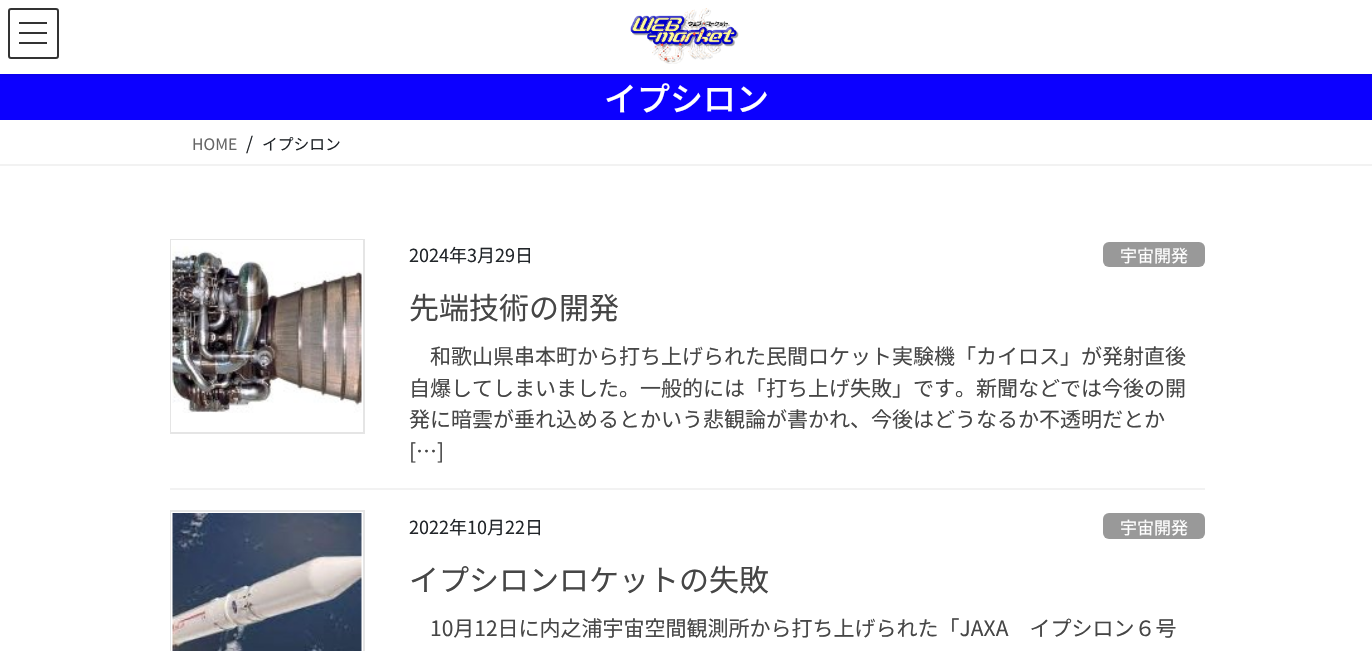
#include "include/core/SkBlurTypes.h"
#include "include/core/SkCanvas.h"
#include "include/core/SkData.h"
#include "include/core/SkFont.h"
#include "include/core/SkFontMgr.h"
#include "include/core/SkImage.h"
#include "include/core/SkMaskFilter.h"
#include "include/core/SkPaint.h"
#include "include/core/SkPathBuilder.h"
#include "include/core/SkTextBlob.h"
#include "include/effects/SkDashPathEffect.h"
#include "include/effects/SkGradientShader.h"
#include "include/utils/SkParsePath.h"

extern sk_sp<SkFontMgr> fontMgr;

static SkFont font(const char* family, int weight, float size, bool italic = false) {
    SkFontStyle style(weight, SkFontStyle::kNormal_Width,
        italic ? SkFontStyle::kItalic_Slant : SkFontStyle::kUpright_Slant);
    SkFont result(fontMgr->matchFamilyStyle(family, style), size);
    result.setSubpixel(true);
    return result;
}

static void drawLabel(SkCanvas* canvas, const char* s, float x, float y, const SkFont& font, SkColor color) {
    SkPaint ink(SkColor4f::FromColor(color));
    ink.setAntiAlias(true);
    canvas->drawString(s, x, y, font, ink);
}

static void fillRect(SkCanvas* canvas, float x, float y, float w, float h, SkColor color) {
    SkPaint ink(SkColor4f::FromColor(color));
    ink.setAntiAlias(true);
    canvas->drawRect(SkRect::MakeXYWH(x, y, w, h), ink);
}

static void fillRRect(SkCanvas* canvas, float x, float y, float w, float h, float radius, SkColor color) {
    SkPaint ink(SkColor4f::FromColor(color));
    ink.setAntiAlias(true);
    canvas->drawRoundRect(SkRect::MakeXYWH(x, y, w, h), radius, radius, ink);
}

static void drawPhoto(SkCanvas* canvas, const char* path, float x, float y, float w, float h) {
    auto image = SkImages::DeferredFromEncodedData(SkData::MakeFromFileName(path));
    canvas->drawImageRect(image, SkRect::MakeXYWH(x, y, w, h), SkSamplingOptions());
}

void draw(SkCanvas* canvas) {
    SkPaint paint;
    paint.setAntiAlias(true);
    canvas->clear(0xFFFFFFFF);
    fillRect(canvas, 0, 74, 1372, 46, 0xFF0C00FF);
    paint.setColor(0x1A000000);
    paint.setMaskFilter(SkMaskFilter::MakeBlur(kNormal_SkBlurStyle, 2));
    canvas->drawRect(SkRect::MakeXYWH(0, 2, 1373, 73), paint);
    paint.setMaskFilter(nullptr);
    fillRect(canvas, 0, 0, 1372, 74, 0xFFFFFFFF);
    drawPhoto(canvas, "assets/img1.png", 630, 8, 109, 56);
    fillRect(canvas, 19, 22, 28, 2, 0xFF333333);
    fillRect(canvas, 19, 32, 28, 2, 0xFF333333);
    fillRect(canvas, 19, 42, 28, 2, 0xFF333333);
    paint.setStroke(true);
    paint.setStrokeWidth(2);
    paint.setColor(0xFF333333);
    canvas->drawRoundRect(SkRect::MakeXYWH(9, 9, 49, 49), 2, 2, paint);
    SkFont font1 = font("Noto Sans JP", 500, 33);
    drawLabel(canvas, "イプシロン", 604, 111, font1, 0xFFFFFFFF);
    fillRect(canvas, 0, 164, 1372, 2, 0xFFF2F2F2);
    SkFont font2 = font("Noto Sans JP", 400, 15.75f);
    drawLabel(canvas, "HOME", 192, 150, font2, 0xFF666666);
    SkFont font3 = font("Noto Sans JP", 400, 18);
    drawLabel(canvas, "/", 246, 150, font3, 0xFF212529);
    drawLabel(canvas, "イプシロン", 262, 150, font2, 0xFF212529);
    fillRect(canvas, 170, 488, 1035, 2, 0xFFF2F2F2);
    paint.setColor(0xFFE5E5E5);
    canvas->drawRect(SkRect::MakeXYWH(171, 240, 193, 193), paint);
    paint.setColor(0xFFFFFFFF);
    canvas->drawRect(SkRect::MakeXYWH(172, 241, 190, 190), paint);
    drawPhoto(canvas, "assets/img2.png", 172, 246, 190, 167);
    drawLabel(canvas, "2024年3月29日", 409, 262, font3, 0xFF212529);
    fillRRect(canvas, 1103, 242, 102, 25, 6, 0xFF999999);
    SkFont font4 = font("Noto Sans JP", 400, 17);
    drawLabel(canvas, "宇宙開発", 1120, 262, font4, 0xFFFFFFFF);
    SkFont font5 = font("Noto Sans JP", 400, 30);
    drawLabel(canvas, "先端技術の開発", 409, 319, font5, 0xFF464646);
    SkFont font6 = font("Noto Sans JP", 400, 21);
    drawLabel(canvas, "和歌山県串本町から打ち上げられた民間ロケット実験機「カイロス」が発射直後", 430, 364, font6, 0xFF464646);
    drawLabel(canvas, "自爆してしまいました。一般的には「打ち上げ失敗」です。新聞などでは今後の開", 409, 396, font6, 0xFF464646);
    drawLabel(canvas, "発に暗雲が垂れ込めるとかいう悲観論が書かれ、今後はどうなるか不透明だとか", 409, 427, font6, 0xFF464646);
    drawLabel(canvas, "[…]", 409, 459, font6, 0xFF464646);
    paint.setColor(0xFFE5E5E5);
    canvas->drawRect(SkRect::MakeXYWH(171, 511, 193, 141), paint);
    paint.setColor(0xFFFFFFFF);
    canvas->drawRect(SkRect::MakeXYWH(172, 513, 190, 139), paint);
    drawPhoto(canvas, "assets/img3.png", 172, 513, 190, 138);
    drawLabel(canvas, "2022年10月22日", 409, 534, font3, 0xFF212529);
    fillRRect(canvas, 1103, 513, 102, 26, 6, 0xFF999999);
    drawLabel(canvas, "宇宙開発", 1120, 534, font4, 0xFFFFFFFF);
    drawLabel(canvas, "イプシロンロケットの失敗", 409, 591, font5, 0xFF464646);
    drawLabel(canvas, "10月12日に内之浦宇宙空間観測所から打ち上げられた「JAXA　イプシロン６号", 430, 636, font6, 0xFF464646);
}
